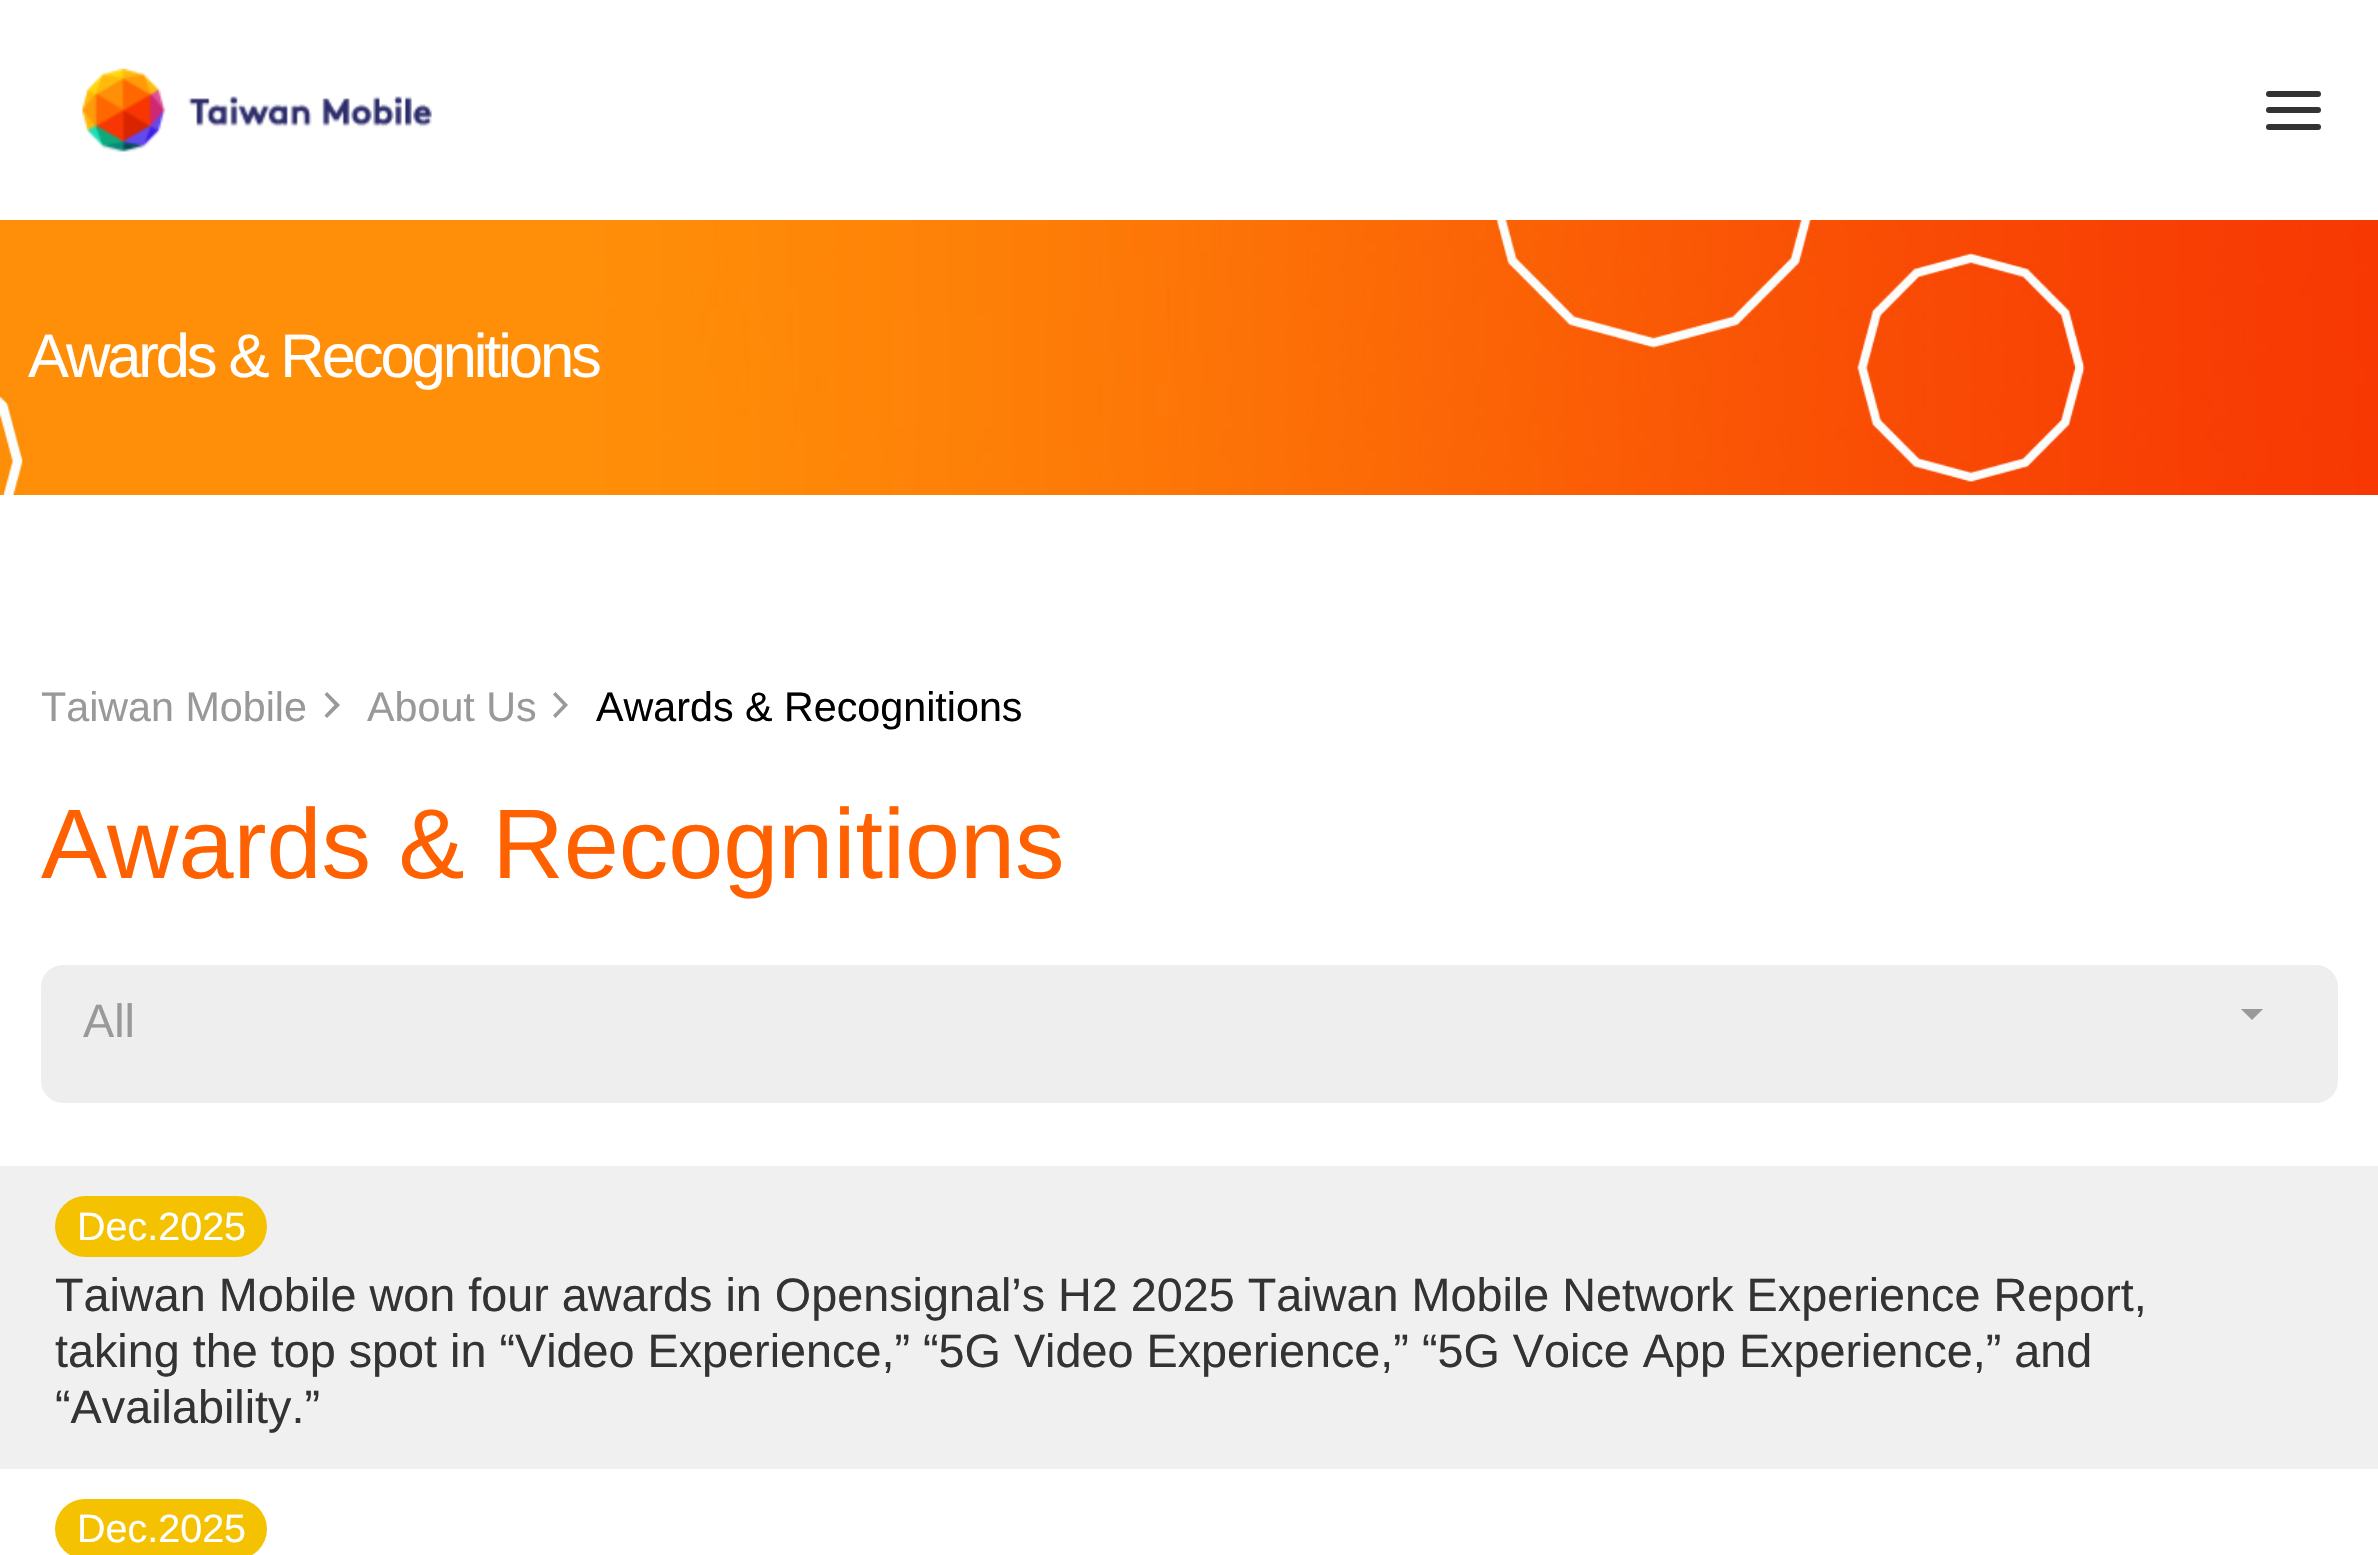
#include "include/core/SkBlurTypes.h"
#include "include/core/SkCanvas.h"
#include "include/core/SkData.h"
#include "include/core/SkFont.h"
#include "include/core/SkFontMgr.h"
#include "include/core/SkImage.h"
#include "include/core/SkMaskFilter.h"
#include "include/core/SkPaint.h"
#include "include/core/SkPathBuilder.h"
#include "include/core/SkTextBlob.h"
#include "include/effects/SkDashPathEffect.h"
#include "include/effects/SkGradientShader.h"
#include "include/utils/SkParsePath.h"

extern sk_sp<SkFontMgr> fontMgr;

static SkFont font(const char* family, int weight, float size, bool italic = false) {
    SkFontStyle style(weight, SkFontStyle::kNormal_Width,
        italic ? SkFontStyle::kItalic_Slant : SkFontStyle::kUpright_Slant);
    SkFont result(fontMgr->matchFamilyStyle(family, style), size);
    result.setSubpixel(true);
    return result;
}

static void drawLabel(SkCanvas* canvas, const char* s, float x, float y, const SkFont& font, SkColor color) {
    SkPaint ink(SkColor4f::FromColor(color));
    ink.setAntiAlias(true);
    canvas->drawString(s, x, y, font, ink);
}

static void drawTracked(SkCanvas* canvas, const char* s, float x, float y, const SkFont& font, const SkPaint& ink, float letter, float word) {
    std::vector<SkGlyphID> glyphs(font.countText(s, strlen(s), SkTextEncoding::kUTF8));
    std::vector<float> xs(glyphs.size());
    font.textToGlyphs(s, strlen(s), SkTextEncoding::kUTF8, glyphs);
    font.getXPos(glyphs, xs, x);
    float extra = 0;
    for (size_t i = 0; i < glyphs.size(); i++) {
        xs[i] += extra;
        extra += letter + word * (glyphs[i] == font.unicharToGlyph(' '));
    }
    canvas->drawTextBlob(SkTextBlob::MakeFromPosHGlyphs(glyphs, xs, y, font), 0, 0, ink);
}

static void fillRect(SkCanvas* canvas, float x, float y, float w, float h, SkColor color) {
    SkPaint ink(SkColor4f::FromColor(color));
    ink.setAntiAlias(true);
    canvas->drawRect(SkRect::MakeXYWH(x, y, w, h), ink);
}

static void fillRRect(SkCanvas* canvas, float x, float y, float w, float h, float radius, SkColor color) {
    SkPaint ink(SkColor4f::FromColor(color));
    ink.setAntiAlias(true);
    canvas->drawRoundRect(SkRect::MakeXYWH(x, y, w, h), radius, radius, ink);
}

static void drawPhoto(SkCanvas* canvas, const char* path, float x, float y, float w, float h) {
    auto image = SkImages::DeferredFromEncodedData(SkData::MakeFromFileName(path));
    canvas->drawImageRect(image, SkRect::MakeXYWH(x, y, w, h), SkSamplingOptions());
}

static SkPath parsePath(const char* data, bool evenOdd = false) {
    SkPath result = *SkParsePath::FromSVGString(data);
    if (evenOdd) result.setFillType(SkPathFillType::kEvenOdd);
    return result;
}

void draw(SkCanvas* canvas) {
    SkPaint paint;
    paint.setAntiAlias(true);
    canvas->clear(0xFFFFFFFF);
    drawPhoto(canvas, "assets/img1.png", 82, 68, 350, 84);
    fillRRect(canvas, 2266, 91, 55, 6, 3, 0xFF333333);
    fillRRect(canvas, 2266, 107, 55, 6, 3, 0xFF333333);
    fillRRect(canvas, 2266, 124, 55, 6, 3, 0xFF333333);
    drawPhoto(canvas, "assets/img2.png", 0, 220, 2378, 275);
    SkFont font1 = font("Liberation Sans", 400, 61.5f);
    paint.setColor(0xFFFFFFFF);
    drawTracked(canvas, "Awards & Recognitions", 28, 377, font1, paint, -3.1f, 0);
    SkFont font2 = font("Liberation Sans", 400, 41.25f);
    drawLabel(canvas, "Taiwan Mobile", 41, 721, font2, 0xFF999999);
    paint.setColor(0xFF999999);
    canvas->drawPath(parsePath("M324.5 694.5L327 692L340 705L327 718L324.5 715.5L334.5 705Z"), paint);
    drawLabel(canvas, "About Us", 367, 721, font2, 0xFF999999);
    canvas->drawPath(parsePath("M553 694.5L555.5 692L568 705L555.5 718L553 715.5L563 705Z"), paint);
    drawLabel(canvas, "Awards & Recognitions", 596, 721, font2, 0xFF000000);
    SkFont font3 = font("Liberation Sans", 400, 99);
    drawLabel(canvas, "Awards & Recognitions", 41, 878, font3, 0xFFFF6100);
    fillRRect(canvas, 41, 965, 2297, 138, 22, 0xFFEEEEEE);
    SkFont font4 = font("Liberation Sans", 400, 46.75f);
    drawLabel(canvas, "All", 83, 1037, font4, 0xFF999999);
    canvas->drawPath(parsePath("M2241 1009H2263L2252 1020Z"), paint);
    fillRect(canvas, 0, 1166, 2378, 303, 0xFFF0F0F0);
    fillRRect(canvas, 55, 1196, 212, 61, 30.5f, 0xFFF4C200);
    SkFont font5 = font("Liberation Sans", 400, 39.5f);
    drawLabel(canvas, "Dec.2025", 77, 1240, font5, 0xFFFFFFFF);
    drawLabel(canvas, "Taiwan Mobile won four awards in Opensignal’s H2 2025 Taiwan Mobile Network Experience Report,", 55, 1311, font4, 0xFF333333);
    drawLabel(canvas, "taking the top spot in “Video Experience,” “5G Video Experience,” “5G Voice App Experience,” and", 55, 1367, font4, 0xFF333333);
    drawLabel(canvas, "“Availability.”", 55, 1423, font4, 0xFF333333);
    fillRRect(canvas, 55, 1499, 212, 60, 30, 0xFFF4C200);
    drawLabel(canvas, "Dec.2025", 77, 1542, font5, 0xFFFFFFFF);
}
